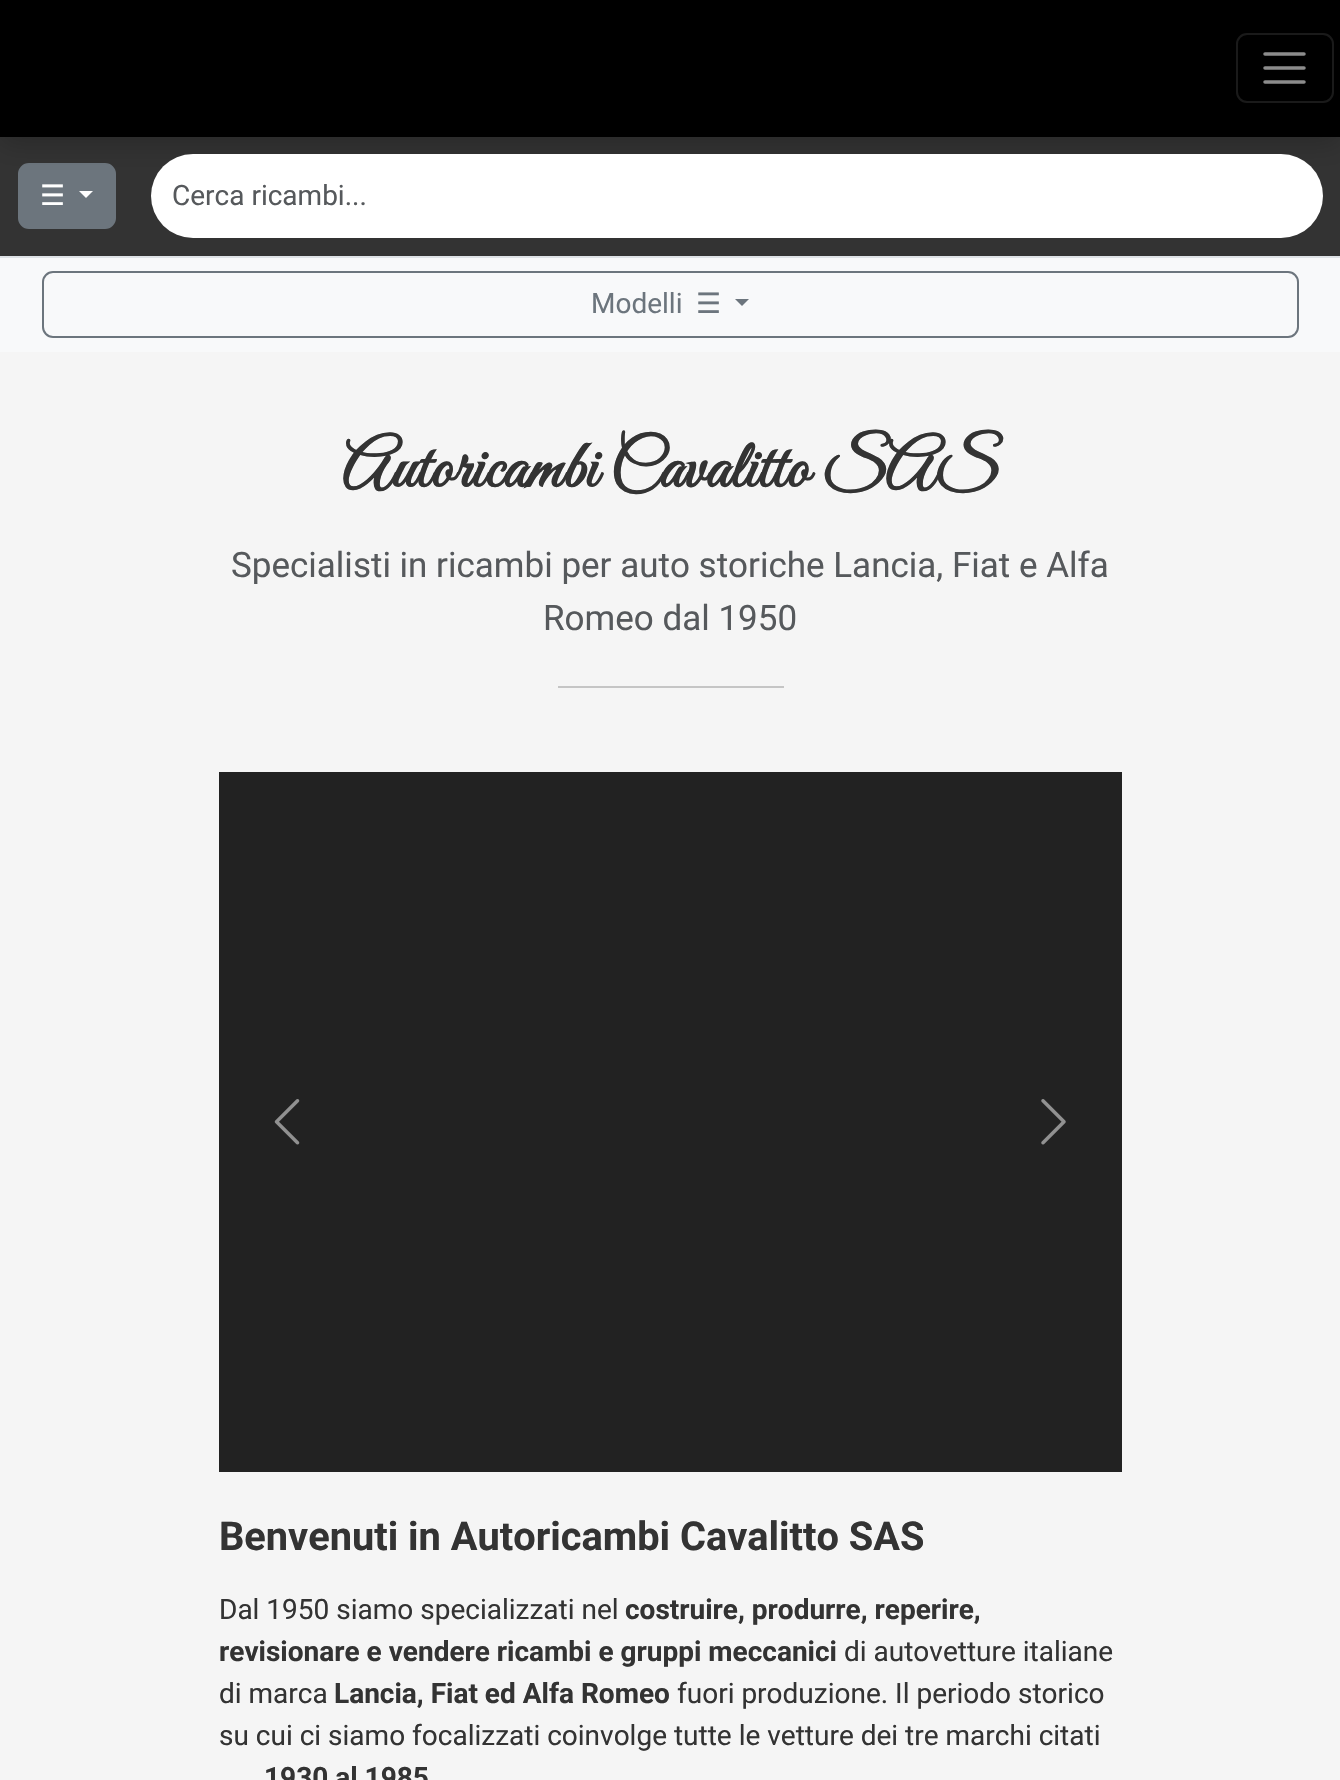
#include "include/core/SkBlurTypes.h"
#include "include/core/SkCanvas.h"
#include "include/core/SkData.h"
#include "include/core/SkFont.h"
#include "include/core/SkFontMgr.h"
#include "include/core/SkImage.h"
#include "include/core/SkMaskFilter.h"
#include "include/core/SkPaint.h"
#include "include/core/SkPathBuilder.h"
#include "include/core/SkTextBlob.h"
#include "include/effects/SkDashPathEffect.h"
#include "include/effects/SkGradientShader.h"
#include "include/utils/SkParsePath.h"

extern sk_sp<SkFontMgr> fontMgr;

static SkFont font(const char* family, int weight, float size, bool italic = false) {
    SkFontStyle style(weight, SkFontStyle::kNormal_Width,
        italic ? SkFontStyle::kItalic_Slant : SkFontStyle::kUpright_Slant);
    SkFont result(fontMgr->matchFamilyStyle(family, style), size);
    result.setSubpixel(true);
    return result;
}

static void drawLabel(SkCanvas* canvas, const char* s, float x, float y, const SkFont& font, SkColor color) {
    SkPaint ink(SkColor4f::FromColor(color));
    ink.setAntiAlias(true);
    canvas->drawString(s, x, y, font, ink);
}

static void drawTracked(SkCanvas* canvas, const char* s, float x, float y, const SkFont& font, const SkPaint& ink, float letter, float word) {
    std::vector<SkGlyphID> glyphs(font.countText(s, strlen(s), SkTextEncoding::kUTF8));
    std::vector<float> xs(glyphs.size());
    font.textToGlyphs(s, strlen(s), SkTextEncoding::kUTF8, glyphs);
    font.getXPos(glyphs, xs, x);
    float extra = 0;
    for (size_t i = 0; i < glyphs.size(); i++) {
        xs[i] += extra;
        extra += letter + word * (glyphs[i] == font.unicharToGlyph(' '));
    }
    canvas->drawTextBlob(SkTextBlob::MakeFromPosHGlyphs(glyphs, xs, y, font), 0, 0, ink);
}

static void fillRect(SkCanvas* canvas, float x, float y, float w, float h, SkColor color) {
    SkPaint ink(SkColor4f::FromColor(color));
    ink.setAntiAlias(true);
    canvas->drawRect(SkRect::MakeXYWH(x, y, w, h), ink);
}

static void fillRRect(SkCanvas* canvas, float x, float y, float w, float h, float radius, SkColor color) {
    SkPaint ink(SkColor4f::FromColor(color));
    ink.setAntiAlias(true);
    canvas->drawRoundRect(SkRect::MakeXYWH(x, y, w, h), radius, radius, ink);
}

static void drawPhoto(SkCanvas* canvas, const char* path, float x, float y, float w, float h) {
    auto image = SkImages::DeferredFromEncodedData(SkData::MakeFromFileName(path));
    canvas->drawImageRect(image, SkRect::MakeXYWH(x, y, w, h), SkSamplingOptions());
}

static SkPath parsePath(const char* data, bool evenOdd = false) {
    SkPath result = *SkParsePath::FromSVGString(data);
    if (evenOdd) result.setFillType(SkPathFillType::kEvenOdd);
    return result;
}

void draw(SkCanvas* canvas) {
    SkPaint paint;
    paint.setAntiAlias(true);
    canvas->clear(0xFFF5F5F5);
    fillRect(canvas, 0, 137, 1340, 119, 0xFF333333);
    paint.setColor(0xFF6C757D);
    canvas->drawRoundRect(SkRect::MakeXYWH(19, 164, 96, 64), 10, 10, paint);
    paint.setStroke(true);
    paint.setStrokeWidth(2);
    canvas->drawRoundRect(SkRect::MakeXYWH(19, 164, 96, 64), 10, 10, paint);
    paint.setStroke(false);
    paint.setColor(0x33000000);
    paint.setMaskFilter(SkMaskFilter::MakeBlur(kNormal_SkBlurStyle, 13));
    canvas->drawRect(SkRect::MakeXYWH(0, 7, 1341, 137), paint);
    paint.setMaskFilter(nullptr);
    fillRect(canvas, 0, 0, 1340, 137, 0xFF000000);
    paint.setStroke(true);
    paint.setColor(0xFF1A1A1A);
    canvas->drawRoundRect(SkRect::MakeXYWH(1237, 34, 96, 68), 10, 10, paint);
    paint.setStrokeWidth(3.5f);
    paint.setStrokeCap(SkPaint::kRound_Cap);
    paint.setColor(0xFF8C8C8C);
    canvas->drawPath(parsePath("M1265 54H1304M1265 68H1304M1265 82H1304"), paint);
    SkFont font1 = font("DejaVu Sans", 400, 28);
    drawLabel(canvas, "☰", 40, 205, font1, 0xFFFFFFFF);
    paint.setStroke(false);
    paint.setColor(0xFFFFFFFF);
    canvas->drawPath(parsePath("M79 191H93L86 198Z"), paint);
    fillRRect(canvas, 151, 154, 1172, 84, 42, 0xFFFFFFFF);
    SkFont font2 = font("Roboto", 400, 28);
    drawLabel(canvas, "Cerca ricambi...", 172, 205, font2, 0xFF56595C);
    fillRect(canvas, 0, 258, 1340, 94, 0xFFF8F9FA);
    fillRect(canvas, 0, 256, 1340, 2, 0xFFDEE2E6);
    paint.setStroke(true);
    paint.setStrokeWidth(2);
    paint.setStrokeCap(SkPaint::kButt_Cap);
    paint.setColor(0xFF6C757D);
    canvas->drawRoundRect(SkRect::MakeXYWH(43, 272, 1255, 65), 10, 10, paint);
    drawLabel(canvas, "Modelli", 591, 313, font2, 0xFF6C757D);
    drawLabel(canvas, "☰", 696, 313, font1, 0xFF6C757D);
    paint.setStroke(false);
    canvas->drawPath(parsePath("M735 299H749L742 306Z"), paint);
    SkFont font3 = font("Great Vibes", 700, 68);
    paint.setColor(0xFF333333);
    drawTracked(canvas, "Autoricambi Cavalitto SAS", 342, 487, font3, paint, 0.5f, 0);
    SkFont font4 = font("Roboto", 400, 35);
    drawLabel(canvas, "Specialisti in ricambi per auto storiche Lancia, Fiat e Alfa", 231, 577, font4, 0xFF56595C);
    drawLabel(canvas, "Romeo dal 1950", 543, 630, font4, 0xFF56595C);
    fillRect(canvas, 558, 686, 226, 2, 0xFFC5C5C5);
    fillRect(canvas, 219, 772, 903, 700, 0xFF222222);
    drawPhoto(canvas, "assets/img1.png", 274, 1099, 26, 46);
    drawPhoto(canvas, "assets/img2.png", 1041, 1099, 25, 46);
    SkFont font5 = font("Roboto", 700, 39.75f);
    drawLabel(canvas, "Benvenuti in Autoricambi Cavalitto SAS", 219, 1550, font5, 0xFF333333);
    drawLabel(canvas, "Dal 1950 siamo specializzati nel", 219, 1619, font2, 0xFF333333);
    SkFont font6 = font("Roboto", 700, 28);
    drawLabel(canvas, "costruire, produrre, reperire,", 625, 1619, font6, 0xFF333333);
    drawLabel(canvas, "revisionare e vendere ricambi e gruppi meccanici", 219, 1661, font6, 0xFF333333);
    drawLabel(canvas, "di autovetture italiane", 844, 1661, font2, 0xFF333333);
    drawLabel(canvas, "di marca", 219, 1703, font2, 0xFF333333);
    drawLabel(canvas, "Lancia, Fiat ed Alfa Romeo", 334, 1703, font6, 0xFF333333);
    drawLabel(canvas, "fuori produzione. Il periodo storico", 677, 1703, font2, 0xFF333333);
    drawLabel(canvas, "su cui ci siamo focalizzati coinvolge tutte le vetture dei tre marchi citati", 219, 1745, font2, 0xFF333333);
    drawLabel(canvas, "1930 al 1985", 264, 1787, font6, 0xFF333333);
}
